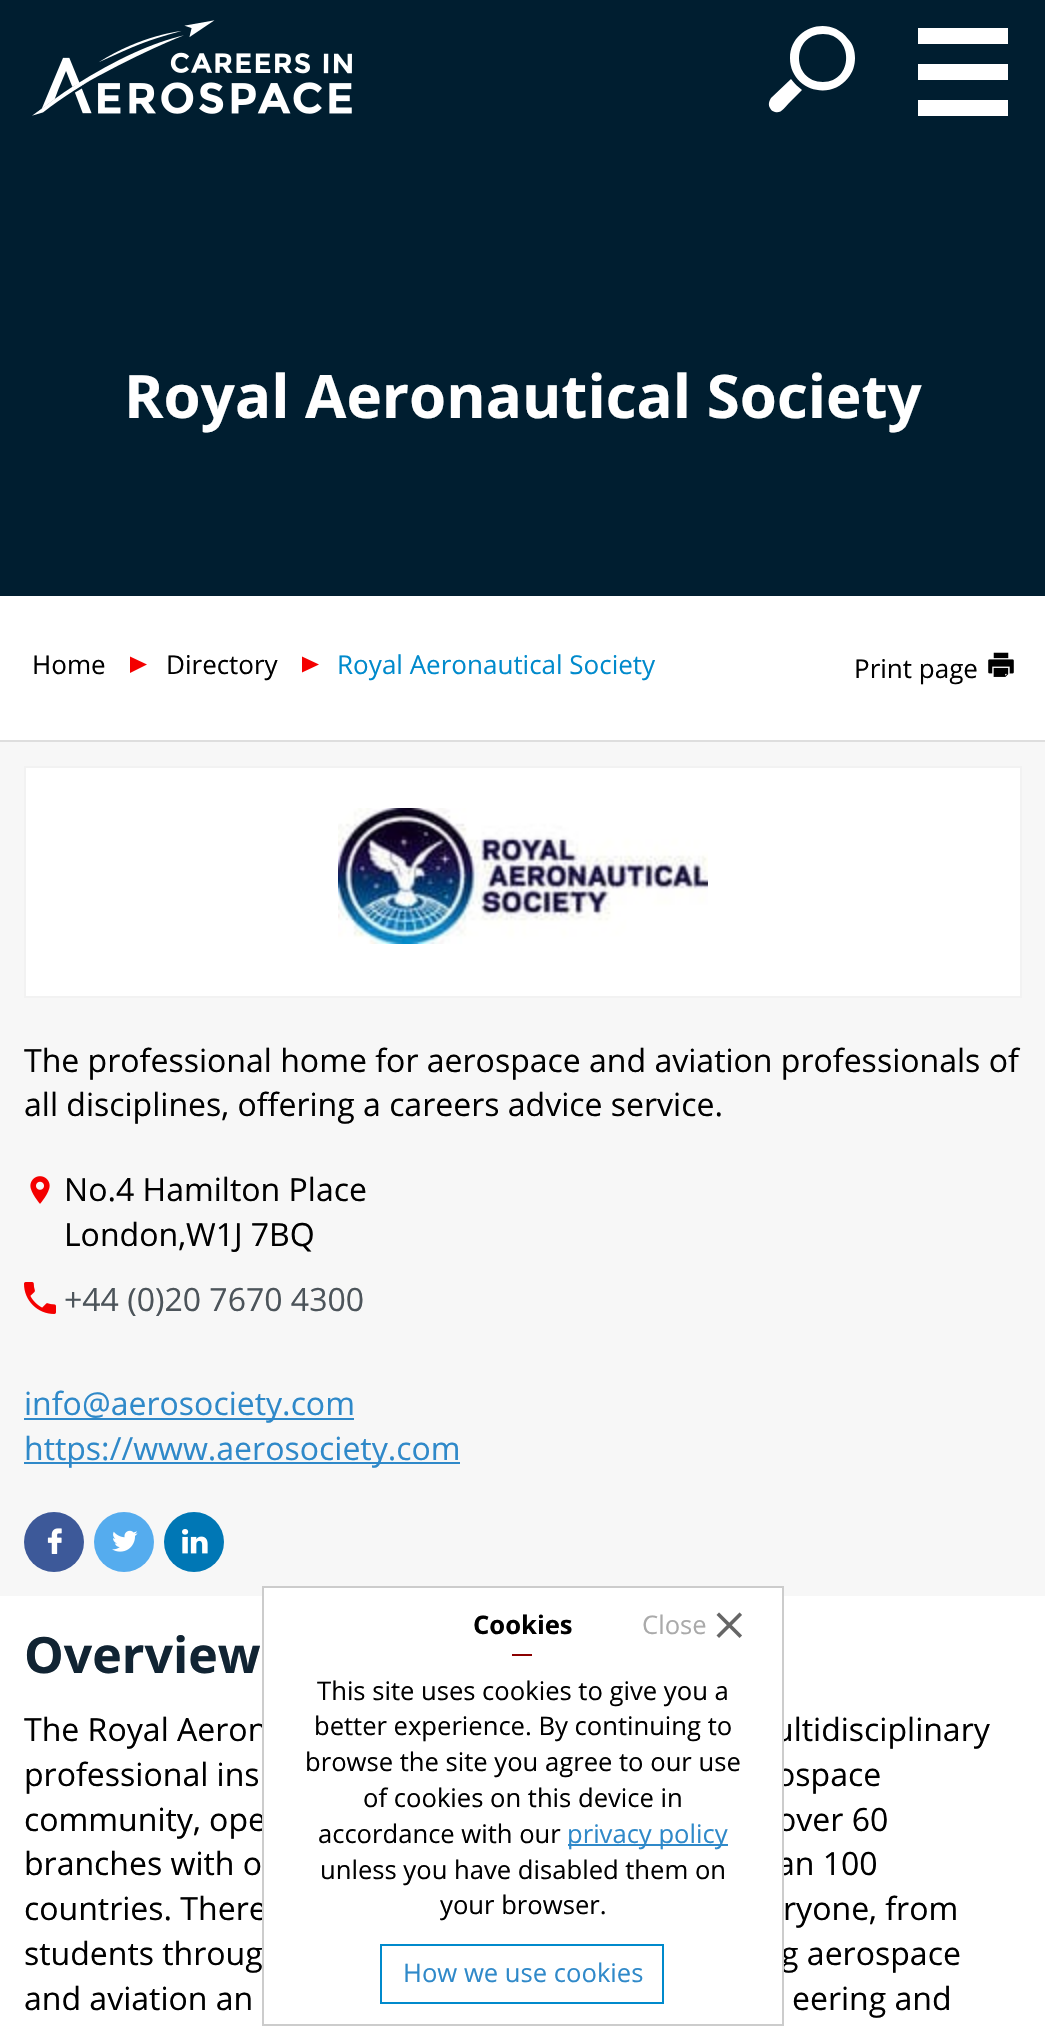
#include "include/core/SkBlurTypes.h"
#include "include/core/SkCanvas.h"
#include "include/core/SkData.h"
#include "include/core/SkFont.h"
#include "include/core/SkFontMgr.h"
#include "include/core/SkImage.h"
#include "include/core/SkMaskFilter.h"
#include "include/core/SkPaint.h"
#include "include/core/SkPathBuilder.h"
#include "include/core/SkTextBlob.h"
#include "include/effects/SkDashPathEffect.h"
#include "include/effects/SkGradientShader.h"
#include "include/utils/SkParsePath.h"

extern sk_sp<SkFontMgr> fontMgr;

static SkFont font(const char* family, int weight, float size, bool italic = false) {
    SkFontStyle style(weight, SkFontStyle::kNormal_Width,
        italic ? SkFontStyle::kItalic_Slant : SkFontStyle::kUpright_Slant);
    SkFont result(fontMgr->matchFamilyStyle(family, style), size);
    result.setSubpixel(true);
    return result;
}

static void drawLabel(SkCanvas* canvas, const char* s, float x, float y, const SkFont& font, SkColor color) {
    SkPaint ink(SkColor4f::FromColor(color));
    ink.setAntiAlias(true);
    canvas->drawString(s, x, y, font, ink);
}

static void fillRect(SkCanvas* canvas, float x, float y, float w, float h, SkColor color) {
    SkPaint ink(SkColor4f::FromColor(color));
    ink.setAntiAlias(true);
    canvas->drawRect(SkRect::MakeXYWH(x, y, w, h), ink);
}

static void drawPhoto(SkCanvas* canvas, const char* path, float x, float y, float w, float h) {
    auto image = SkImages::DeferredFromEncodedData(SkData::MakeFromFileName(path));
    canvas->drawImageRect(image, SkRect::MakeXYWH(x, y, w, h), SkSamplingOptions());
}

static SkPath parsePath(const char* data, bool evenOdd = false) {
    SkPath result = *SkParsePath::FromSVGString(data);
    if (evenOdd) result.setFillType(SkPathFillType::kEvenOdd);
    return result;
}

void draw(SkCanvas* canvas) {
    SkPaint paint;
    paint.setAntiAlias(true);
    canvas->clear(0xFF001E30);
    drawPhoto(canvas, "assets/img1.png", 32, 20, 320, 96);
    paint.setColor(0xFFFFFFFF);
    canvas->drawPath(parsePath("M790 58C790 28 829 14 848 39C853 44 855 51 855 58C855 65 853 72 848 78C829 102 790 89 790 58ZM823 82C854 82 854 34 823 34C791 34 791 82 823 82ZM771 98L791 79C794 83 798 87 802 90L789 103C785 107 781 114 775 112C772 111 771 110 770 108C768 105 769 101 771 98Z"), paint);
    fillRect(canvas, 918, 28, 90, 16, 0xFFFFFFFF);
    fillRect(canvas, 918, 64, 90, 16, 0xFFFFFFFF);
    fillRect(canvas, 918, 100, 90, 16, 0xFFFFFFFF);
    SkFont font1 = font("Open Sans", 700, 60);
    drawLabel(canvas, "Royal Aeronautical Society", 124, 418, font1, 0xFFFFFFFF);
    fillRect(canvas, 0, 596, 1045, 144, 0xFFFFFFFF);
    fillRect(canvas, 0, 740, 1045, 2, 0xFFDEDEDE);
    SkFont font2 = font("Open Sans", 400, 26);
    drawLabel(canvas, "Home", 32, 674, font2, 0xFF000000);
    paint.setColor(0xFFF40000);
    canvas->drawPath(parsePath("M130 673V656.5L147 664.5Z"), paint);
    drawLabel(canvas, "Directory", 166, 674, font2, 0xFF000000);
    canvas->drawPath(parsePath("M302 672.5V656.5L319 664.5Z"), paint);
    drawLabel(canvas, "Royal Aeronautical Society", 337, 674, font2, 0xFF008ACC);
    drawLabel(canvas, "Print page", 854, 678, font2, 0xFF000000);
    drawPhoto(canvas, "assets/img2.png", 988, 652, 26, 25);
    fillRect(canvas, 0, 742, 1045, 854, 0xFFF7F7F7);
    paint.setColor(0xFFFFFFFF);
    canvas->drawRect(SkRect::MakeXYWH(25, 767, 996, 230), paint);
    paint.setStroke(true);
    paint.setStrokeWidth(2);
    paint.setColor(0xFFF2F2F2);
    canvas->drawRect(SkRect::MakeXYWH(25, 767, 996, 230), paint);
    drawPhoto(canvas, "assets/img3.png", 338, 808, 370, 136);
    SkFont font3 = font("Open Sans", 400, 32);
    drawLabel(canvas, "The professional home for aerospace and aviation professionals of", 24, 1072, font3, 0xFF000000);
    drawLabel(canvas, "all disciplines, offering a careers advice service.", 24, 1116, font3, 0xFF000000);
    drawPhoto(canvas, "assets/img4.png", 30, 1176, 20, 28);
    drawLabel(canvas, "No.4 Hamilton Place", 64, 1201, font3, 0xFF000000);
    drawLabel(canvas, "London,W1J 7BQ", 64, 1246, font3, 0xFF000000);
    drawPhoto(canvas, "assets/img5.png", 24, 1282, 32, 32);
    drawLabel(canvas, "+44 (0)20 7670 4300", 64, 1311, font3, 0xFF4C545A);
    fillRect(canvas, 24, 1418, 330, 2, 0xFF2F89C9);
    drawLabel(canvas, "info@aerosociety.com", 24, 1415, font3, 0xFF2F89C9);
    fillRect(canvas, 24, 1462, 436, 2, 0xFF2F89C9);
    drawLabel(canvas, "https://www.aerosociety.com", 24, 1460, font3, 0xFF2F89C9);
    paint.setStroke(false);
    paint.setColor(0xFF3D5999);
    canvas->drawCircle(54, 1542, 30, paint);
    drawPhoto(canvas, "assets/img6.png", 47, 1528, 15, 26);
    paint.setColor(0xFF55ACEE);
    canvas->drawCircle(124, 1542, 30, paint);
    drawPhoto(canvas, "assets/img7.png", 112, 1530, 26, 22);
    paint.setColor(0xFF0077B5);
    canvas->drawCircle(194, 1542, 30, paint);
    drawPhoto(canvas, "assets/img8.png", 182, 1529, 26, 25);
    fillRect(canvas, 0, 1596, 1045, 430, 0xFFFFFFFF);
    SkFont font4 = font("Open Sans", 700, 50);
    drawLabel(canvas, "Overview", 24, 1673, font4, 0xFF112433);
    drawLabel(canvas, "The Royal Aeron", 24, 1741, font3, 0xFF000000);
    drawLabel(canvas, "ultidisciplinary", 774, 1741, font3, 0xFF000000);
    drawLabel(canvas, "professional ins", 24, 1786, font3, 0xFF000000);
    drawLabel(canvas, "ospace", 776, 1786, font3, 0xFF000000);
    drawLabel(canvas, "community, ope", 24, 1831, font3, 0xFF000000);
    drawLabel(canvas, "over 60", 777, 1831, font3, 0xFF000000);
    drawLabel(canvas, "branches with o", 24, 1875, font3, 0xFF000000);
    drawLabel(canvas, "an 100", 777, 1875, font3, 0xFF000000);
    drawLabel(canvas, "countries. There", 24, 1920, font3, 0xFF000000);
    drawLabel(canvas, "ryone, from", 783, 1920, font3, 0xFF000000);
    drawLabel(canvas, "students throug", 24, 1965, font3, 0xFF000000);
    drawLabel(canvas, "g aerospace", 781, 1965, font3, 0xFF000000);
    drawLabel(canvas, "and aviation an", 24, 2010, font3, 0xFF000000);
    drawLabel(canvas, "eering and", 792, 2010, font3, 0xFF000000);
    fillRect(canvas, 264, 1588, 518, 383, 0xFFFFFFFF);
    paint.setStroke(true);
    paint.setColor(0xFFCCCCCC);
    canvas->drawRect(SkRect::MakeXYWH(263, 1587, 520, 438), paint);
    SkFont font5 = font("Open Sans", 700, 25.6f);
    drawLabel(canvas, "Cookies", 473, 1634, font5, 0xFF000000);
    fillRect(canvas, 512, 1654, 20, 2, 0xFF8B0000);
    SkFont font6 = font("Open Sans", 400, 25.6f);
    drawLabel(canvas, "Close", 642, 1634, font6, 0xFFAAAAAA);
    drawPhoto(canvas, "assets/img9.png", 716, 1612, 26, 26);
    drawLabel(canvas, "This site uses cookies to give you a", 317, 1700, font6, 0xFF000000);
    drawLabel(canvas, "better experience. By continuing to", 314, 1735, font6, 0xFF000000);
    drawLabel(canvas, "browse the site you agree to our use", 305, 1771, font6, 0xFF000000);
    drawLabel(canvas, "of cookies on this device in", 363, 1807, font6, 0xFF000000);
    drawLabel(canvas, "accordance with our", 318, 1843, font6, 0xFF000000);
    fillRect(canvas, 568, 1844, 160, 2, 0xFF2F89C9);
    drawLabel(canvas, "privacy policy", 567, 1843, font6, 0xFF2F89C9);
    drawLabel(canvas, "unless you have disabled them on", 320, 1879, font6, 0xFF000000);
    drawLabel(canvas, "your browser.", 440, 1914, font6, 0xFF000000);
    paint.setColor(0xFF008ACC);
    canvas->drawRect(SkRect::MakeXYWH(381, 1945, 282, 58), paint);
    drawLabel(canvas, "How we use cookies", 403, 1982, font6, 0xFF2F89C9);
}
